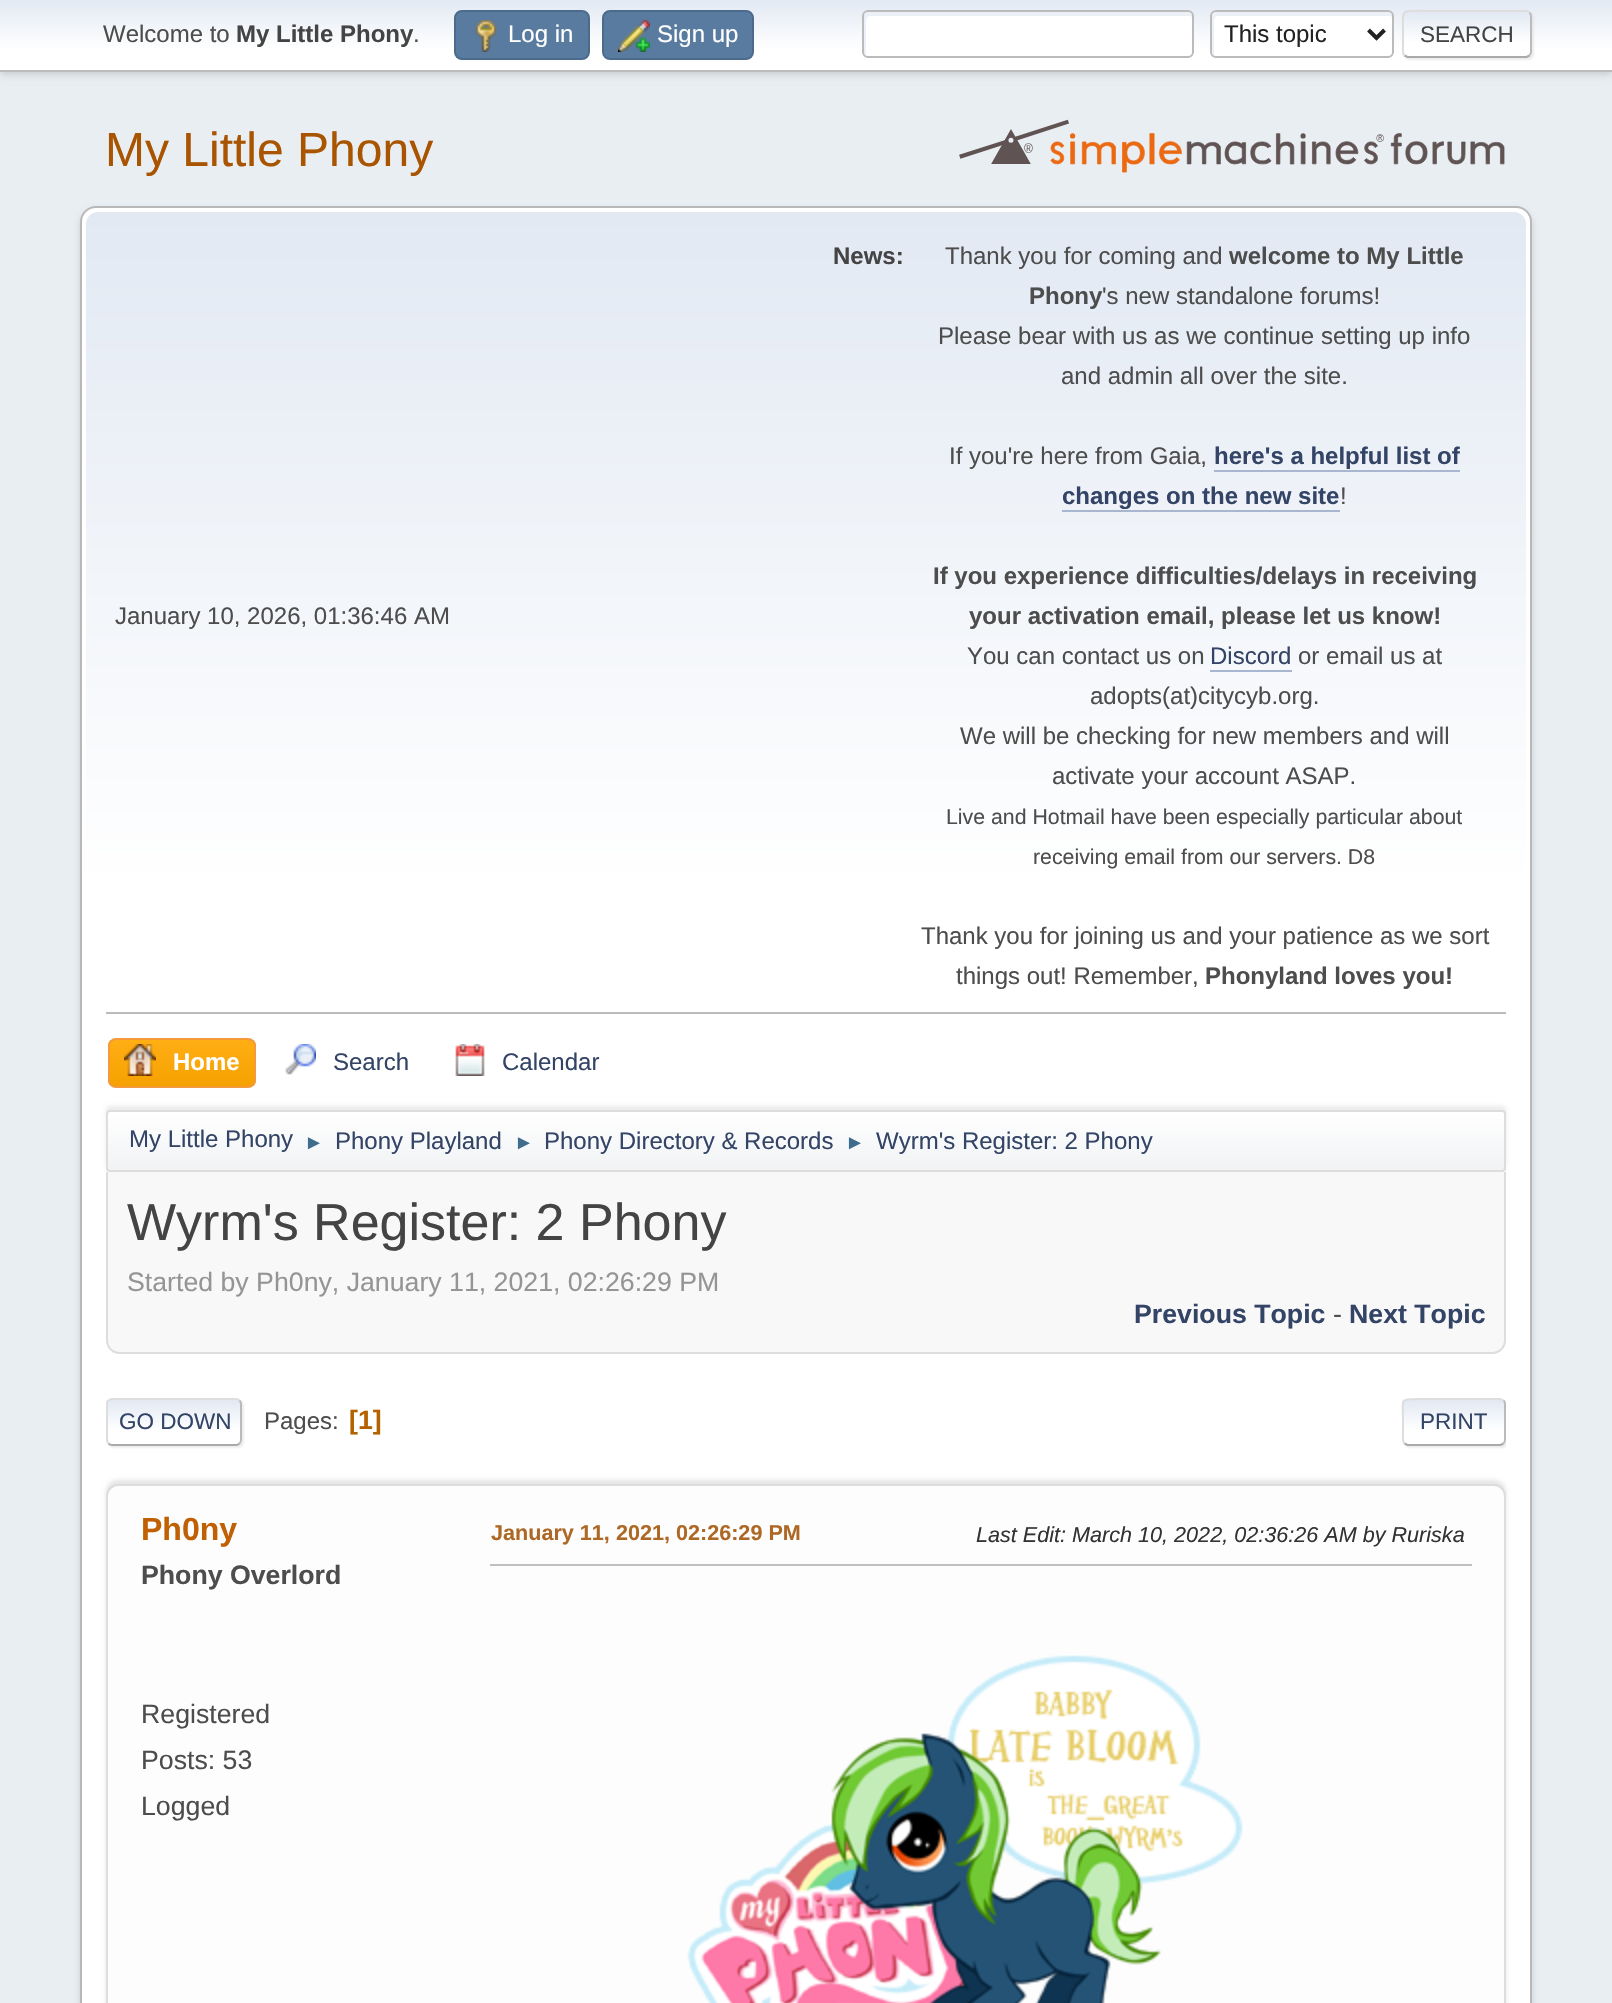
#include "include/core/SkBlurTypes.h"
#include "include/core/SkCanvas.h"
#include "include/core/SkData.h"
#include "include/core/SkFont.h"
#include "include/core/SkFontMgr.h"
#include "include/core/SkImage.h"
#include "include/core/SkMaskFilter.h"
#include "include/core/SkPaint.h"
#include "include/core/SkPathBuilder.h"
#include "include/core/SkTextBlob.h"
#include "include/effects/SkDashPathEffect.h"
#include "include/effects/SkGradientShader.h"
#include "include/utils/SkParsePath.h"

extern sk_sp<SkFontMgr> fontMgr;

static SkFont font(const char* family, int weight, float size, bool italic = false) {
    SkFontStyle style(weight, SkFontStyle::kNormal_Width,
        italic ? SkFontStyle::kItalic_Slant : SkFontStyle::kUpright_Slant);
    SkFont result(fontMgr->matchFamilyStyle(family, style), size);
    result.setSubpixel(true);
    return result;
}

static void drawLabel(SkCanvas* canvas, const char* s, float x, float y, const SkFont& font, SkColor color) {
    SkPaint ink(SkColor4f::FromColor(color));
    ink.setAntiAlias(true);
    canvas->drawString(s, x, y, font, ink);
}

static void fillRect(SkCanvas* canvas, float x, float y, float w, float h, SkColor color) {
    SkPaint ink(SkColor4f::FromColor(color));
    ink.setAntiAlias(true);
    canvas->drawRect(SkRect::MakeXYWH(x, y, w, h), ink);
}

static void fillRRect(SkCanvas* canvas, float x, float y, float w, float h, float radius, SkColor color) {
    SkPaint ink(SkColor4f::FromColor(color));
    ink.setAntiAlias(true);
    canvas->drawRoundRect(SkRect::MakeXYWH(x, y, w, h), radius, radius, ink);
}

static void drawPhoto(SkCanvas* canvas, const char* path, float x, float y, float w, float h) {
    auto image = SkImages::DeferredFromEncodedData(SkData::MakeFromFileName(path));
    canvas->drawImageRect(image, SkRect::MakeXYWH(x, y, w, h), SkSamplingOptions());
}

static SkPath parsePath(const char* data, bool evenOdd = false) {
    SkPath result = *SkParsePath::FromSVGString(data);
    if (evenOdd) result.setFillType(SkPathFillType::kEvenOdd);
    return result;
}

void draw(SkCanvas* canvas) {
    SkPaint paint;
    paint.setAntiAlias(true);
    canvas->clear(0xFFE9EEF2);
    paint.setColor(0x29000000);
    paint.setMaskFilter(SkMaskFilter::MakeBlur(kNormal_SkBlurStyle, 4));
    canvas->drawRect(SkRect::MakeXYWH(0, 2, 1612, 72), paint);
    paint.setMaskFilter(nullptr);
    {
        const SkColor colors[] = {0xFFE2E9F3, 0xFFFFFFFF};
        const float stops[] = {0, 0.7f};
        const SkPoint ends[] = {{806, 0}, {806, 70}};
        paint.setShader(SkGradientShader::MakeLinear(ends, colors, stops, 2, SkTileMode::kClamp));
        paint.setAlpha(255);
    }
    canvas->drawRect(SkRect::MakeXYWH(0, 0, 1612, 70), paint);
    fillRect(canvas, 0, 70, 1612, 2, 0xFFBBBBBB);
    SkFont font1 = font("Liberation Sans", 400, 24);
    drawLabel(canvas, "Welcome to", 103, 42, font1, 0xFF4D4D4D);
    SkFont font2 = font("Liberation Sans", 700, 24);
    drawLabel(canvas, "My Little Phony", 236, 42, font2, 0xFF444444);
    drawLabel(canvas, ".", 413, 42, font1, 0xFF4D4D4D);
    paint.setShader(nullptr);
    paint.setColor(0xFF597B9F);
    canvas->drawRoundRect(SkRect::MakeXYWH(455, 11, 134, 48), 7, 7, paint);
    paint.setStroke(true);
    paint.setStrokeWidth(2);
    paint.setColor(0xFF4A6B8C);
    canvas->drawRoundRect(SkRect::MakeXYWH(455, 11, 134, 48), 7, 7, paint);
    drawPhoto(canvas, "assets/img1.png", 475, 20, 22, 32);
    drawLabel(canvas, "Log in", 508, 42, font1, 0xFFFFFFFF);
    paint.setStroke(false);
    paint.setColor(0xFF597B9F);
    canvas->drawRoundRect(SkRect::MakeXYWH(603, 11, 150, 48), 7, 7, paint);
    paint.setStroke(true);
    paint.setColor(0xFF4A6B8C);
    canvas->drawRoundRect(SkRect::MakeXYWH(603, 11, 150, 48), 7, 7, paint);
    drawPhoto(canvas, "assets/img2.png", 618, 20, 32, 32);
    drawLabel(canvas, "Sign up", 657, 42, font1, 0xFFFFFFFF);
    fillRRect(canvas, 862, 10, 332, 48, 6, 0xFFFFFFFF);
    paint.setStroke(false);
    paint.setColor(0xFFECF1F8);
    canvas->drawPath(parsePath("M870 16H1190L1192 17V16C1192 14 1190 12 1188 12H868C866 12 864 14 864 16V52C864 53 865 55 866 55V20C866 18 868 16 870 16Z"), paint);
    paint.setStroke(true);
    paint.setColor(0xFFBBBBBB);
    canvas->drawRoundRect(SkRect::MakeXYWH(863, 11, 330, 46), 5, 5, paint);
    fillRRect(canvas, 1210, 10, 184, 48, 6, 0xFFFFFFFF);
    paint.setStroke(false);
    paint.setColor(0xFFECF1F8);
    canvas->drawPath(parsePath("M1218 16H1390L1392 17V16C1392 14 1390 12 1388 12H1216C1214 12 1212 14 1212 16V52C1212 53 1213 55 1214 55V20C1214 18 1216 16 1218 16Z"), paint);
    paint.setStroke(true);
    paint.setColor(0xFFBBBBBB);
    canvas->drawRoundRect(SkRect::MakeXYWH(1211, 11, 182, 46), 5, 5, paint);
    paint.setStrokeWidth(4);
    paint.setColor(0xFF222222);
    canvas->drawPath(parsePath("M1368.5 30L1376.5 38L1384.5 30"), paint);
    drawLabel(canvas, "This topic", 1224, 42, font1, 0xFF222222);
    paint.setStroke(false);
    paint.setColor(0x91DDDDDD);
    paint.setMaskFilter(SkMaskFilter::MakeBlur(kNormal_SkBlurStyle, 1));
    canvas->drawRoundRect(SkRect::MakeXYWH(1404, 12, 130, 48), 6, 6, paint);
    paint.setMaskFilter(nullptr);
    canvas->save();
    canvas->clipPath(parsePath("M1408 10H1526C1529.5 10 1532 12.5 1532 16V52C1532 55.5 1529.5 58 1526 58H1408C1404.5 58 1402 55.5 1402 52V16C1402 12.5 1404.5 10 1408 10Z"), true);
    {
        const SkColor colors[] = {0xFFE2E9F3, 0xFFFFFFFF};
        const float stops[] = {0, 0.7f};
        const SkPoint ends[] = {{1467, 12}, {1467, 56}};
        paint.setShader(SkGradientShader::MakeLinear(ends, colors, stops, 2, SkTileMode::kClamp));
        paint.setAlpha(255);
    }
    canvas->drawRect(SkRect::MakeXYWH(1402, 12, 130, 44), paint);
    {
        const SkColor colors[] = {0xFFE2E9F3, 0xFFFFFFFF};
        const float stops[] = {0, 0.7f};
        const SkPoint ends[] = {{1467, 56}, {1467, 100}};
        paint.setShader(SkGradientShader::MakeLinear(ends, colors, stops, 2, SkTileMode::kClamp));
        paint.setAlpha(255);
    }
    canvas->drawRect(SkRect::MakeXYWH(1402, 56, 130, 2), paint);
    canvas->restore();
    paint.setStroke(true);
    paint.setStrokeWidth(2);
    paint.setShader(nullptr);
    paint.setColor(0xFFBBBBBB);
    canvas->drawPath(parsePath("M1529.5 12.5C1530.5 13.5 1531 14.5 1531 16V52C1531 53.5 1530.5 54.5 1529.5 55.5"), paint);
    paint.setColor(0xFFAAAAAA);
    canvas->drawPath(parsePath("M1529.5 55.5L1526.5 57H1407.5L1404.5 55.5"), paint);
    paint.setColor(0xFFDDDDDD);
    canvas->drawPath(parsePath("M1404.5 55.5C1402 53 1403 48.5 1403 46V34C1403 7 1399 11 1427.5 11H1526C1527.5 11 1528.5 11.5 1529.5 12.5"), paint);
    SkFont font3 = font("Liberation Sans", 400, 22.5f);
    drawLabel(canvas, "SEARCH", 1420, 42, font3, 0xFF444444);
    SkFont font4 = font("Liberation Sans", 400, 48);
    drawLabel(canvas, "My Little Phony", 105, 166, font4, 0xFFA85400);
    drawPhoto(canvas, "assets/img3.png", 959, 119, 546, 54);
    paint.setStroke(false);
    paint.setColor(0x24000000);
    paint.setMaskFilter(SkMaskFilter::MakeBlur(kNormal_SkBlurStyle, 3));
    canvas->drawRoundRect(SkRect::MakeXYWH(80, 210, 1452, 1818), 16, 16, paint);
    paint.setMaskFilter(nullptr);
    paint.setColor(0xFFFFFFFF);
    canvas->drawRoundRect(SkRect::MakeXYWH(81, 207, 1450, 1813), 15, 15, paint);
    paint.setStroke(true);
    paint.setColor(0xFFB8B8B8);
    canvas->drawRoundRect(SkRect::MakeXYWH(81, 207, 1450, 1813), 15, 15, paint);
    paint.setStroke(false);
    {
        const SkColor colors[] = {0xFFE2E9F3, 0xFFFFFFFF};
        const float stops[] = {0, 0.7f};
        const SkPoint ends[] = {{806, 212}, {806, 1176}};
        paint.setShader(SkGradientShader::MakeLinear(ends, colors, stops, 2, SkTileMode::kClamp));
        paint.setAlpha(255);
    }
    canvas->drawPath(parsePath("M98 212H1514C1520.5 212 1526 217.5 1526 224V1176H86V224C86 217.5 91.5 212 98 212Z"), paint);
    fillRect(canvas, 106, 1012, 1400, 2, 0xFFBBBBBB);
    drawLabel(canvas, "January 10, 2026, 01:36:46 AM", 115, 624, font1, 0xFF4D4D4D);
    drawLabel(canvas, "News:", 833, 264, font2, 0xFF444444);
    drawLabel(canvas, "Thank you for coming and", 945, 264, font1, 0xFF4D4D4D);
    drawLabel(canvas, "welcome to My Little", 1229, 264, font2, 0xFF4D4D4D);
    drawLabel(canvas, "Phony", 1029, 304, font2, 0xFF4D4D4D);
    drawLabel(canvas, "'s new standalone forums!", 1102, 304, font1, 0xFF4D4D4D);
    drawLabel(canvas, "Please bear with us as we continue setting up info", 938, 344, font1, 0xFF4D4D4D);
    drawLabel(canvas, "and admin all over the site.", 1061, 384, font1, 0xFF4D4D4D);
    drawLabel(canvas, "If you're here from Gaia,", 949, 464, font1, 0xFF4D4D4D);
    drawLabel(canvas, "here's a helpful list of", 1214, 464, font2, 0xFF334466);
    fillRect(canvas, 1214, 470, 246, 2, 0xFFA8B6CF);
    drawLabel(canvas, "changes on the new site", 1062, 504, font2, 0xFF334466);
    fillRect(canvas, 1062, 510, 278, 2, 0xFFA8B6CF);
    drawLabel(canvas, "!", 1340, 504, font1, 0xFF4D4D4D);
    drawLabel(canvas, "If you experience difficulties/delays in receiving", 933, 584, font2, 0xFF4D4D4D);
    drawLabel(canvas, "your activation email, please let us know!", 969, 624, font2, 0xFF4D4D4D);
    drawLabel(canvas, "You can contact us on", 967, 664, font1, 0xFF4D4D4D);
    drawLabel(canvas, "Discord", 1210, 664, font1, 0xFF334466);
    fillRect(canvas, 1210, 670, 82, 2, 0xFFA8B6CF);
    drawLabel(canvas, "or email us at", 1298, 664, font1, 0xFF4D4D4D);
    drawLabel(canvas, "adopts(at)citycyb.org.", 1090, 704, font1, 0xFF4D4D4D);
    drawLabel(canvas, "We will be checking for new members and will", 960, 744, font1, 0xFF4D4D4D);
    drawLabel(canvas, "activate your account ASAP.", 1052, 784, font1, 0xFF4D4D4D);
    SkFont font5 = font("Liberation Sans", 400, 21.3f);
    drawLabel(canvas, "Live and Hotmail have been especially particular about", 946, 824, font5, 0xFF4D4D4D);
    drawLabel(canvas, "receiving email from our servers. D8", 1033, 864, font5, 0xFF4D4D4D);
    drawLabel(canvas, "Thank you for joining us and your patience as we sort", 921, 944, font1, 0xFF4D4D4D);
    drawLabel(canvas, "things out! Remember,", 956, 984, font1, 0xFF4D4D4D);
    drawLabel(canvas, "Phonyland loves you!", 1205, 984, font2, 0xFF4D4D4D);
    canvas->save();
    canvas->clipPath(parsePath("M116 1038H248C252.5 1038 256 1041.5 256 1046V1080C256 1084.5 252.5 1088 248 1088H116C111.5 1088 108 1084.5 108 1080V1046C108 1041.5 111.5 1038 116 1038Z"), true);
    {
        const SkColor colors[] = {0xFFFFAE14, 0xFFF5A100};
        const float stops[] = {0, 1};
        const SkPoint ends[] = {{182, 1040}, {182, 1086}};
        paint.setShader(SkGradientShader::MakeLinear(ends, colors, stops, 2, SkTileMode::kClamp));
        paint.setAlpha(255);
    }
    canvas->drawRect(SkRect::MakeXYWH(108, 1040, 148, 46), paint);
    canvas->restore();
    paint.setStroke(true);
    paint.setShader(nullptr);
    paint.setColor(0xFFF49A3A);
    canvas->drawRoundRect(SkRect::MakeXYWH(109, 1039, 146, 48), 7, 7, paint);
    drawPhoto(canvas, "assets/img4.png", 124, 1044, 32, 32);
    drawLabel(canvas, "Home", 173, 1070, font2, 0xFFFFFFFF);
    drawPhoto(canvas, "assets/img5.png", 285, 1044, 31, 31);
    drawLabel(canvas, "Search", 333, 1070, font1, 0xFF334466);
    drawPhoto(canvas, "assets/img6.png", 455, 1044, 30, 32);
    drawLabel(canvas, "Calendar", 502, 1070, font1, 0xFF334466);
    paint.setStroke(false);
    paint.setColor(0x14000000);
    paint.setMaskFilter(SkMaskFilter::MakeBlur(kNormal_SkBlurStyle, 2));
    canvas->drawRoundRect(SkRect::MakeXYWH(106, 1106, 1400, 62), 4, 4, paint);
    paint.setMaskFilter(nullptr);
    canvas->save();
    canvas->clipPath(parsePath("M110 1110H1502C1504 1110 1506 1112 1506 1114V1168C1506 1170 1504 1172 1502 1172H110C108 1172 106 1170 106 1168V1114C106 1112 108 1110 110 1110Z"), true);
    {
        const SkColor colors[] = {0xFFFFFFFF, 0xFFF1F3F5};
        const float stops[] = {0, 0.95f};
        const SkPoint ends[] = {{806, 1112}, {806, 1170}};
        paint.setShader(SkGradientShader::MakeLinear(ends, colors, stops, 2, SkTileMode::kClamp));
        paint.setAlpha(255);
    }
    canvas->drawRect(SkRect::MakeXYWH(106, 1112, 1400, 58), paint);
    canvas->restore();
    paint.setStroke(true);
    paint.setShader(nullptr);
    paint.setColor(0xFFDDDDDD);
    canvas->drawRoundRect(SkRect::MakeXYWH(107, 1111, 1398, 60), 3, 3, paint);
    drawLabel(canvas, "My Little Phony", 129, 1147, font1, 0xFF334466);
    SkFont font6 = font("Liberation Sans", 400, 20);
    drawLabel(canvas, "►", 304, 1149, font6, 0xFF3F6B8C);
    drawLabel(canvas, "Phony Playland", 335, 1149, font1, 0xFF334466);
    drawLabel(canvas, "►", 514, 1149, font6, 0xFF3F6B8C);
    drawLabel(canvas, "Phony Directory & Records", 544, 1149, font1, 0xFF334466);
    drawLabel(canvas, "►", 845, 1149, font6, 0xFF3F6B8C);
    drawLabel(canvas, "Wyrm's Register: 2 Phony", 876, 1149, font1, 0xFF334466);
    paint.setStroke(false);
    paint.setColor(0xFFF8F8F8);
    canvas->drawPath(parsePath("M106 1172H1506V1340C1506 1347.5 1499.5 1354 1492 1354H120C112.5 1354 106 1347.5 106 1340Z"), paint);
    paint.setColor(0xFFDDDDDD);
    canvas->drawPath(parsePath("M106 1172H1506V1340C1506 1348 1500 1354 1492 1354H120C112 1354 106 1348 106 1340ZM108 1172H1504V1340C1504 1347 1499 1352 1492 1352H120C113 1352 108 1347 108 1340Z", true), paint);
    SkFont font7 = font("Liberation Sans", 400, 52);
    drawLabel(canvas, "Wyrm's Register: 2 Phony", 127, 1240, font7, 0xFF444444);
    SkFont font8 = font("Liberation Sans", 400, 26.7f);
    drawLabel(canvas, "Started by Ph0ny, January 11, 2021, 02:26:29 PM", 127, 1291, font8, 0xFF959595);
    SkFont font9 = font("Liberation Sans", 700, 26.7f);
    drawLabel(canvas, "Previous Topic", 1134, 1323, font9, 0xFF334466);
    drawLabel(canvas, "-", 1333, 1323, font8, 0xFF4D4D4D);
    drawLabel(canvas, "Next Topic", 1349, 1323, font9, 0xFF334466);
    paint.setColor(0x91DDDDDD);
    paint.setMaskFilter(SkMaskFilter::MakeBlur(kNormal_SkBlurStyle, 1));
    canvas->drawRoundRect(SkRect::MakeXYWH(108, 1400, 136, 48), 6, 6, paint);
    paint.setMaskFilter(nullptr);
    canvas->save();
    canvas->clipPath(parsePath("M112 1398H236C239.5 1398 242 1400.5 242 1404V1440C242 1443.5 239.5 1446 236 1446H112C108.5 1446 106 1443.5 106 1440V1404C106 1400.5 108.5 1398 112 1398Z"), true);
    {
        const SkColor colors[] = {0xFFE2E9F3, 0xFFFFFFFF};
        const float stops[] = {0, 0.7f};
        const SkPoint ends[] = {{174, 1400}, {174, 1444}};
        paint.setShader(SkGradientShader::MakeLinear(ends, colors, stops, 2, SkTileMode::kClamp));
        paint.setAlpha(255);
    }
    canvas->drawRect(SkRect::MakeXYWH(106, 1400, 136, 44), paint);
    canvas->restore();
    paint.setStroke(true);
    paint.setShader(nullptr);
    paint.setColor(0xFFBBBBBB);
    canvas->drawPath(parsePath("M239.5 1400.5C240.5 1401.5 241 1402.5 241 1404V1440C241 1441.5 240.5 1442.5 239.5 1443.5"), paint);
    paint.setColor(0xFFAAAAAA);
    canvas->drawPath(parsePath("M239.5 1443.5C238.5 1444.5 237.5 1445 236 1445H112C110.5 1445 109.5 1444.5 108.5 1443.5"), paint);
    paint.setColor(0xFFDDDDDD);
    canvas->drawPath(parsePath("M108.5 1443.5C107.5 1442.5 107 1441.5 107 1440V1404C107 1402.5 107.5 1401.5 108.5 1400.5C109.5 1399.5 110.5 1399 112 1399H236C237.5 1399 238.5 1399.5 239.5 1400.5"), paint);
    drawLabel(canvas, "GO DOWN", 119, 1429, font3, 0xFF334466);
    drawLabel(canvas, "Pages:", 264, 1429, font1, 0xFF4D4D4D);
    drawLabel(canvas, "[1]", 349, 1429, font9, 0xFFB46100);
    canvas->save();
    canvas->clipRect(SkRect::MakeXYWH(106, 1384, 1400, 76));
    paint.setStroke(false);
    paint.setColor(0x91DDDDDD);
    paint.setMaskFilter(SkMaskFilter::MakeBlur(kNormal_SkBlurStyle, 1));
    canvas->drawRoundRect(SkRect::MakeXYWH(1404, 1400, 104, 48), 6, 6, paint);
    paint.setMaskFilter(nullptr);
    canvas->restore();
    fillRRect(canvas, 1402, 1398, 104, 48, 6, 0xFFFFFFFF);
    canvas->save();
    canvas->clipPath(parsePath("M1408 1398H1500C1503.5 1398 1506 1400.5 1506 1404V1440C1506 1443.5 1503.5 1446 1500 1446H1408C1404.5 1446 1402 1443.5 1402 1440V1404C1402 1400.5 1404.5 1398 1408 1398Z"), true);
    {
        const SkColor colors[] = {0xFFE2E9F3, 0xFFFFFFFF};
        const float stops[] = {0, 0.7f};
        const SkPoint ends[] = {{1454, 1400}, {1454, 1444}};
        paint.setShader(SkGradientShader::MakeLinear(ends, colors, stops, 2, SkTileMode::kClamp));
        paint.setAlpha(255);
    }
    canvas->drawRect(SkRect::MakeXYWH(1402, 1400, 104, 44), paint);
    {
        const SkColor colors[] = {0xFFE2E9F3, 0xFFFFFFFF};
        const float stops[] = {0, 0.7f};
        const SkPoint ends[] = {{1454, 1444}, {1454, 1488}};
        paint.setShader(SkGradientShader::MakeLinear(ends, colors, stops, 2, SkTileMode::kClamp));
        paint.setAlpha(255);
    }
    canvas->drawRect(SkRect::MakeXYWH(1402, 1444, 104, 2), paint);
    canvas->restore();
    paint.setStroke(true);
    paint.setShader(nullptr);
    paint.setColor(0xFFBBBBBB);
    canvas->drawPath(parsePath("M1503.5 1400.5C1504.5 1401.5 1505 1402.5 1505 1404V1440C1505 1441.5 1504.5 1442.5 1503.5 1443.5"), paint);
    paint.setColor(0xFFAAAAAA);
    canvas->drawPath(parsePath("M1503.5 1443.5L1500.5 1445H1407.5L1404.5 1443.5"), paint);
    paint.setColor(0xFFDDDDDD);
    canvas->drawPath(parsePath("M1404.5 1443.5C1402 1441 1403 1436.5 1403 1434V1422C1403 1397 1398.5 1399 1423.5 1399H1500L1503.5 1400.5"), paint);
    drawLabel(canvas, "PRINT", 1420, 1429, font3, 0xFF334466);
    paint.setStroke(false);
    paint.setColor(0x1A000000);
    paint.setMaskFilter(SkMaskFilter::MakeBlur(kNormal_SkBlurStyle, 2));
    canvas->drawRoundRect(SkRect::MakeXYWH(106, 1480, 1400, 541), 12, 12, paint);
    paint.setMaskFilter(nullptr);
    paint.setColor(0xFFFDFDFD);
    canvas->drawRoundRect(SkRect::MakeXYWH(107, 1485, 1398, 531), 11, 11, paint);
    paint.setStroke(true);
    paint.setColor(0xFFDDDDDD);
    canvas->drawRoundRect(SkRect::MakeXYWH(107, 1485, 1398, 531), 11, 11, paint);
    SkFont font10 = font("Liberation Sans", 700, 32);
    drawLabel(canvas, "Ph0ny", 141, 1540, font10, 0xFFC06002);
    drawLabel(canvas, "Phony Overlord", 141, 1584, font9, 0xFF4D4D4D);
    drawLabel(canvas, "Registered", 141, 1723, font8, 0xFF4D4D4D);
    drawLabel(canvas, "Posts: 53", 141, 1769, font8, 0xFF4D4D4D);
    drawLabel(canvas, "Logged", 141, 1815, font8, 0xFF4D4D4D);
    SkFont font11 = font("Liberation Sans", 700, 21.6f);
    drawLabel(canvas, "January 11, 2021, 02:26:29 PM", 491, 1540, font11, 0xFFAD6825);
    SkFont font12 = font("Liberation Sans", 400, 21.6f, true);
    drawLabel(canvas, "Last Edit: March 10, 2022, 02:36:26 AM by Ruriska", 976, 1542, font12, 0xFF333333);
    fillRect(canvas, 490, 1564, 982, 2, 0xFFBFBFBF);
    drawPhoto(canvas, "assets/img7.png", 687, 1655, 556, 348);
}
